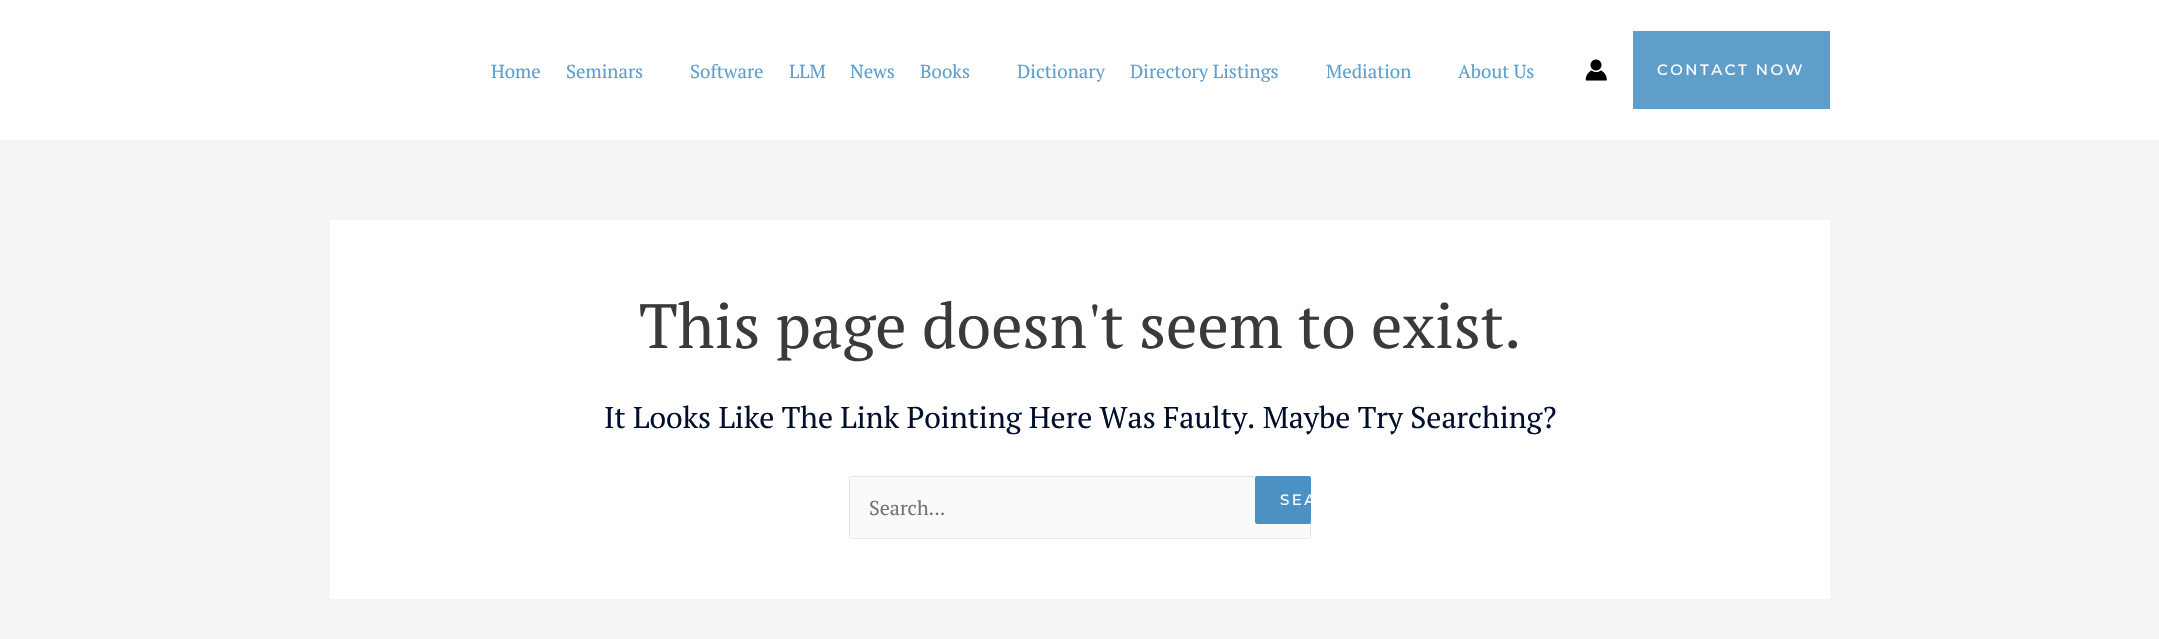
#include "include/core/SkBlurTypes.h"
#include "include/core/SkCanvas.h"
#include "include/core/SkData.h"
#include "include/core/SkFont.h"
#include "include/core/SkFontMgr.h"
#include "include/core/SkImage.h"
#include "include/core/SkMaskFilter.h"
#include "include/core/SkPaint.h"
#include "include/core/SkPathBuilder.h"
#include "include/core/SkTextBlob.h"
#include "include/effects/SkDashPathEffect.h"
#include "include/effects/SkGradientShader.h"
#include "include/utils/SkParsePath.h"

extern sk_sp<SkFontMgr> fontMgr;

static SkFont font(const char* family, int weight, float size, bool italic = false) {
    SkFontStyle style(weight, SkFontStyle::kNormal_Width,
        italic ? SkFontStyle::kItalic_Slant : SkFontStyle::kUpright_Slant);
    SkFont result(fontMgr->matchFamilyStyle(family, style), size);
    result.setSubpixel(true);
    return result;
}

static void drawLabel(SkCanvas* canvas, const char* s, float x, float y, const SkFont& font, SkColor color) {
    SkPaint ink(SkColor4f::FromColor(color));
    ink.setAntiAlias(true);
    canvas->drawString(s, x, y, font, ink);
}

static void drawTracked(SkCanvas* canvas, const char* s, float x, float y, const SkFont& font, const SkPaint& ink, float letter, float word) {
    std::vector<SkGlyphID> glyphs(font.countText(s, strlen(s), SkTextEncoding::kUTF8));
    std::vector<float> xs(glyphs.size());
    font.textToGlyphs(s, strlen(s), SkTextEncoding::kUTF8, glyphs);
    font.getXPos(glyphs, xs, x);
    float extra = 0;
    for (size_t i = 0; i < glyphs.size(); i++) {
        xs[i] += extra;
        extra += letter + word * (glyphs[i] == font.unicharToGlyph(' '));
    }
    canvas->drawTextBlob(SkTextBlob::MakeFromPosHGlyphs(glyphs, xs, y, font), 0, 0, ink);
}

static void fillRect(SkCanvas* canvas, float x, float y, float w, float h, SkColor color) {
    SkPaint ink(SkColor4f::FromColor(color));
    ink.setAntiAlias(true);
    canvas->drawRect(SkRect::MakeXYWH(x, y, w, h), ink);
}

static void fillRRect(SkCanvas* canvas, float x, float y, float w, float h, float radius, SkColor color) {
    SkPaint ink(SkColor4f::FromColor(color));
    ink.setAntiAlias(true);
    canvas->drawRoundRect(SkRect::MakeXYWH(x, y, w, h), radius, radius, ink);
}

static void drawPhoto(SkCanvas* canvas, const char* path, float x, float y, float w, float h) {
    auto image = SkImages::DeferredFromEncodedData(SkData::MakeFromFileName(path));
    canvas->drawImageRect(image, SkRect::MakeXYWH(x, y, w, h), SkSamplingOptions());
}

static SkPath parsePath(const char* data, bool evenOdd = false) {
    SkPath result = *SkParsePath::FromSVGString(data);
    if (evenOdd) result.setFillType(SkPathFillType::kEvenOdd);
    return result;
}

void draw(SkCanvas* canvas) {
    SkPaint paint;
    paint.setAntiAlias(true);
    canvas->clear(0xFFF5F5F5);
    fillRect(canvas, 0, 0, 2159, 140, 0xFFFFFFFF);
    SkFont font1 = font("PT Serif", 400, 18.75f);
    drawLabel(canvas, "Home", 491, 78, font1, 0xFF609ECA);
    drawLabel(canvas, "Seminars", 566, 78, font1, 0xFF609ECA);
    drawLabel(canvas, "Software", 690, 78, font1, 0xFF609ECA);
    drawLabel(canvas, "LLM", 789, 78, font1, 0xFF609ECA);
    drawLabel(canvas, "News", 850, 78, font1, 0xFF609ECA);
    drawLabel(canvas, "Books", 920, 78, font1, 0xFF609ECA);
    drawLabel(canvas, "Dictionary", 1017, 78, font1, 0xFF609ECA);
    drawLabel(canvas, "Directory Listings", 1130, 78, font1, 0xFF609ECA);
    drawLabel(canvas, "Mediation", 1326, 78, font1, 0xFF609ECA);
    drawLabel(canvas, "About Us", 1458, 78, font1, 0xFF609ECA);
    drawPhoto(canvas, "assets/img1.png", 1585, 59, 22, 22);
    fillRect(canvas, 1633, 31, 197, 78, 0xFF609ECA);
    SkFont font2 = font("Montserrat", 100, 15);
    paint.setColor(0xFFFFFFFF);
    drawTracked(canvas, "CONTACT NOW", 1657, 75, font2, paint, 2.5f, 0);
    fillRect(canvas, 330, 220, 1500, 379, 0xFFFFFFFF);
    SkFont font3 = font("PT Serif", 400, 62.5f);
    drawLabel(canvas, "This page doesn't seem to exist.", 639, 348, font3, 0xFF3A3A3A);
    SkFont font4 = font("PT Serif", 400, 30);
    drawLabel(canvas, "It Looks Like The Link Pointing Here Was Faulty. Maybe Try Searching?", 604, 428, font4, 0xFF000F2B);
    paint.setColor(0xFFFAFAFA);
    canvas->drawRoundRect(SkRect::MakeXYWH(849.5f, 476.5f, 461, 62), 2, 2, paint);
    paint.setStroke(true);
    paint.setStrokeWidth(1);
    paint.setColor(0xFFE5E5E5);
    canvas->drawRoundRect(SkRect::MakeXYWH(849.5f, 476.5f, 461, 62), 2, 2, paint);
    SkFont font5 = font("PT Serif", 400, 20);
    drawLabel(canvas, "Search...", 869, 515, font5, 0xFF757575);
    fillRRect(canvas, 1255, 476, 56, 48, 2.5f, 0xFF4B91C4);
    canvas->save();
    canvas->clipPath(parsePath("M1257.5 476H1308.5C1310 476 1311 477 1311 478.5V521.5C1311 523 1310 524 1308.5 524H1257.5C1256 524 1255 523 1255 521.5V478.5C1255 477 1256 476 1257.5 476Z"), true);
    paint.setStroke(false);
    paint.setColor(0xFFFFFFFF);
    drawTracked(canvas, "SEA", 1280, 505, font2, paint, 2.5f, 0);
    canvas->restore();
}
